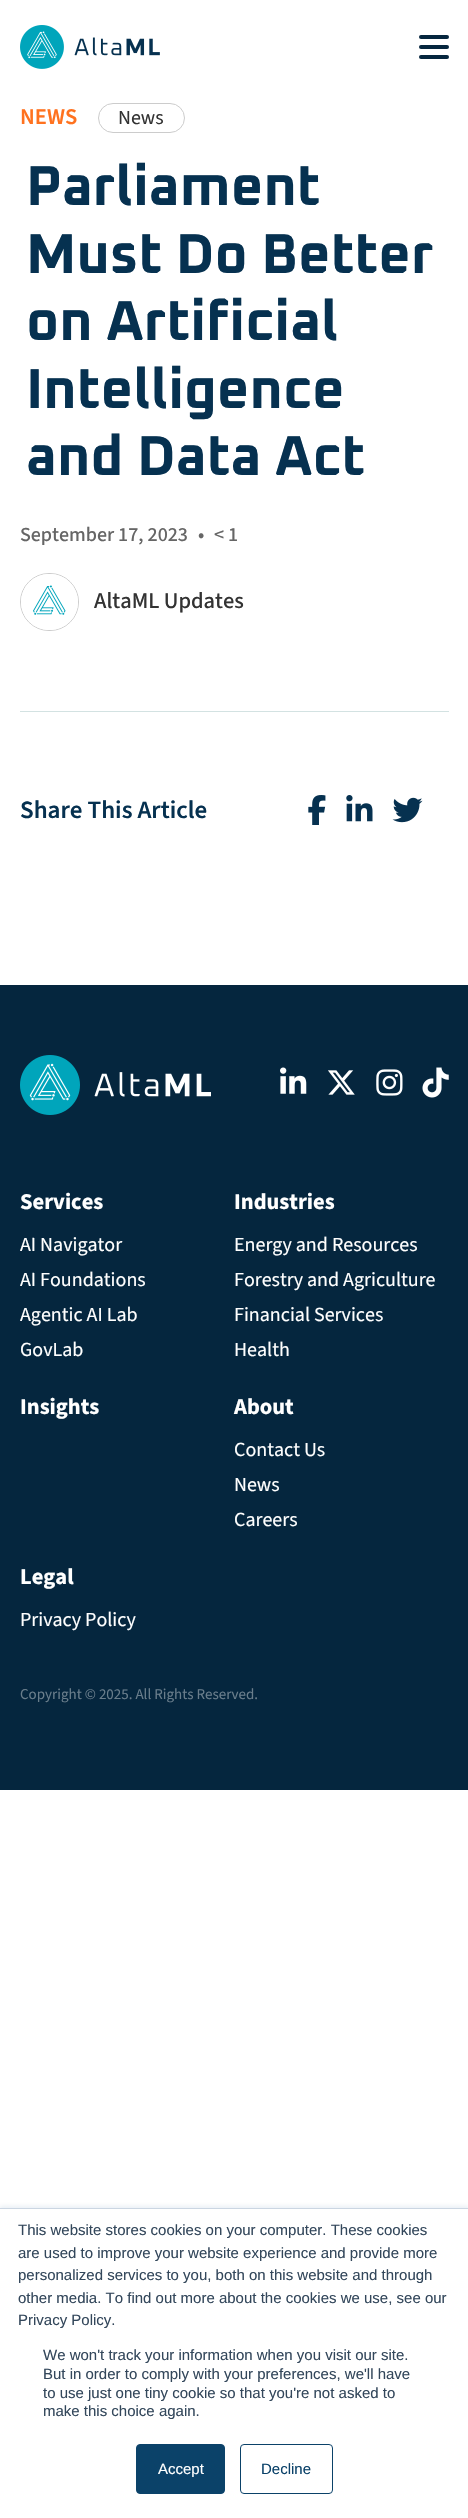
#include "include/core/SkBlurTypes.h"
#include "include/core/SkCanvas.h"
#include "include/core/SkData.h"
#include "include/core/SkFont.h"
#include "include/core/SkFontMgr.h"
#include "include/core/SkImage.h"
#include "include/core/SkMaskFilter.h"
#include "include/core/SkPaint.h"
#include "include/core/SkPathBuilder.h"
#include "include/core/SkTextBlob.h"
#include "include/effects/SkDashPathEffect.h"
#include "include/effects/SkGradientShader.h"
#include "include/utils/SkParsePath.h"

extern sk_sp<SkFontMgr> fontMgr;

static SkFont font(const char* family, int weight, float size, bool italic = false) {
    SkFontStyle style(weight, SkFontStyle::kNormal_Width,
        italic ? SkFontStyle::kItalic_Slant : SkFontStyle::kUpright_Slant);
    SkFont result(fontMgr->matchFamilyStyle(family, style), size);
    result.setSubpixel(true);
    return result;
}

static void drawLabel(SkCanvas* canvas, const char* s, float x, float y, const SkFont& font, SkColor color) {
    SkPaint ink(SkColor4f::FromColor(color));
    ink.setAntiAlias(true);
    canvas->drawString(s, x, y, font, ink);
}

static void fillRect(SkCanvas* canvas, float x, float y, float w, float h, SkColor color) {
    SkPaint ink(SkColor4f::FromColor(color));
    ink.setAntiAlias(true);
    canvas->drawRect(SkRect::MakeXYWH(x, y, w, h), ink);
}

static void fillRRect(SkCanvas* canvas, float x, float y, float w, float h, float radius, SkColor color) {
    SkPaint ink(SkColor4f::FromColor(color));
    ink.setAntiAlias(true);
    canvas->drawRoundRect(SkRect::MakeXYWH(x, y, w, h), radius, radius, ink);
}

static void drawPhoto(SkCanvas* canvas, const char* path, float x, float y, float w, float h) {
    auto image = SkImages::DeferredFromEncodedData(SkData::MakeFromFileName(path));
    canvas->drawImageRect(image, SkRect::MakeXYWH(x, y, w, h), SkSamplingOptions());
}

void draw(SkCanvas* canvas) {
    SkPaint paint;
    paint.setAntiAlias(true);
    canvas->clear(0xFFFFFFFF);
    drawPhoto(canvas, "assets/img1.png", 20, 25, 140, 44);
    fillRRect(canvas, 419, 55, 30, 4, 2, 0xFF05263E);
    fillRRect(canvas, 419, 35, 30, 4, 2, 0xFF05263E);
    fillRRect(canvas, 419, 45, 30, 4, 2, 0xFF05263E);
    SkFont font1 = font("Source Sans 3", 600, 22.5f);
    drawLabel(canvas, "NEWS", 20, 124, font1, 0xFFFF721F);
    paint.setStroke(true);
    paint.setStrokeWidth(1);
    paint.setColor(0xFFCCCCCC);
    canvas->drawRoundRect(SkRect::MakeXYWH(98.5f, 103.5f, 86, 29), 14.5f, 14.5f, paint);
    SkFont font2 = font("Source Sans 3", 400, 20);
    drawLabel(canvas, "News", 118, 124, font2, 0xFF333333);
    SkFont font3 = font("Oxanium", 700, 56.25f);
    drawLabel(canvas, "Parliament", 26, 205, font3, 0xFF063150);
    drawLabel(canvas, "Must Do Better", 26, 273, font3, 0xFF063150);
    drawLabel(canvas, "on Artificial", 26, 340, font3, 0xFF063150);
    drawLabel(canvas, "Intelligence", 26, 408, font3, 0xFF063150);
    drawLabel(canvas, "and Data Act", 26, 475, font3, 0xFF063150);
    SkFont font4 = font("Source Sans 3", 500, 20);
    drawLabel(canvas, "September 17, 2023", 20, 541, font4, 0xFF666666);
    drawLabel(canvas, "•", 198, 541, font4, 0xFF666666);
    drawLabel(canvas, "< 1", 214, 541, font4, 0xFF666666);
    canvas->drawRoundRect(SkRect::MakeXYWH(20.5f, 573.5f, 58, 57), 28.5f, 28.5f, paint);
    drawPhoto(canvas, "assets/img2.png", 21, 574, 57, 56);
    SkFont font5 = font("Source Sans 3", 500, 22.5f);
    drawLabel(canvas, "AltaML Updates", 94, 608, font5, 0xFF333333);
    fillRect(canvas, 20, 711, 429, 1, 0xFFD3E2E2);
    SkFont font6 = font("Source Sans 3", 600, 25);
    drawLabel(canvas, "Share This Article", 20, 818, font6, 0xFF063150);
    drawPhoto(canvas, "assets/img3.png", 308, 795, 18, 30);
    drawPhoto(canvas, "assets/img4.png", 346, 795, 27, 27);
    drawPhoto(canvas, "assets/img5.png", 392, 797, 31, 26);
    fillRect(canvas, 0, 985, 468, 805, 0xFF05263E);
    drawPhoto(canvas, "assets/img6.png", 20, 1055, 191, 60);
    drawPhoto(canvas, "assets/img7.png", 280, 1067, 27, 27);
    drawPhoto(canvas, "assets/img8.png", 328, 1070, 27, 25);
    drawPhoto(canvas, "assets/img9.png", 376, 1069, 27, 27);
    drawPhoto(canvas, "assets/img10.png", 422, 1067, 27, 31);
    SkFont font7 = font("Source Sans 3", 700, 22.5f);
    drawLabel(canvas, "Services", 20, 1209, font7, 0xFFFFFFFF);
    drawLabel(canvas, "AI Navigator", 20, 1251, font2, 0xFFFFFFFF);
    drawLabel(canvas, "AI Foundations", 20, 1286, font2, 0xFFFFFFFF);
    drawLabel(canvas, "Agentic AI Lab", 20, 1321, font2, 0xFFFFFFFF);
    drawLabel(canvas, "GovLab", 20, 1356, font2, 0xFFFFFFFF);
    drawLabel(canvas, "Industries", 234, 1209, font7, 0xFFFFFFFF);
    drawLabel(canvas, "Energy and Resources", 234, 1251, font2, 0xFFFFFFFF);
    drawLabel(canvas, "Forestry and Agriculture", 234, 1286, font2, 0xFFFFFFFF);
    drawLabel(canvas, "Financial Services", 234, 1321, font2, 0xFFFFFFFF);
    drawLabel(canvas, "Health", 234, 1356, font2, 0xFFFFFFFF);
    drawLabel(canvas, "Insights", 20, 1414, font7, 0xFFFFFFFF);
    drawLabel(canvas, "About", 234, 1414, font7, 0xFFFFFFFF);
    drawLabel(canvas, "Contact Us", 234, 1456, font2, 0xFFFFFFFF);
    drawLabel(canvas, "News", 234, 1491, font2, 0xFFFFFFFF);
    drawLabel(canvas, "Careers", 234, 1526, font2, 0xFFFFFFFF);
    drawLabel(canvas, "Legal", 20, 1584, font7, 0xFFFFFFFF);
    drawLabel(canvas, "Privacy Policy", 20, 1626, font2, 0xFFFFFFFF);
    SkFont font8 = font("Source Sans 3", 400, 15);
    drawLabel(canvas, "Copyright © 2025. All Rights Reserved.", 20, 1699, font8, 0xFF697D8B);
    canvas->save();
    canvas->clipRect(SkRect::MakeXYWH(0, 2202, 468, 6));
    paint.setStroke(false);
    paint.setColor(0xFFEAF0F6);
    paint.setMaskFilter(SkMaskFilter::MakeBlur(kNormal_SkBlurStyle, 2));
    canvas->drawRect(SkRect::MakeXYWH(0, 2206, 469, 312), paint);
    paint.setMaskFilter(nullptr);
    canvas->restore();
    fillRect(canvas, 0, 2208, 468, 1, 0xFFCBD6E2);
    SkFont font9 = font("Liberation Sans", 400, 15);
    drawLabel(canvas, "This website stores cookies on your computer. These cookies", 18, 2235, font9, 0xFF33475B);
    drawLabel(canvas, "are used to improve your website experience and provide more", 18, 2258, font9, 0xFF33475B);
    drawLabel(canvas, "personalized services to you, both on this website and through", 18, 2280, font9, 0xFF33475B);
    drawLabel(canvas, "other media. To find out more about the cookies we use, see our", 18, 2303, font9, 0xFF33475B);
    drawLabel(canvas, "Privacy Policy.", 18, 2325, font9, 0xFF33475B);
    drawLabel(canvas, "We won't track your information when you visit our site.", 43, 2360, font9, 0xFF33475B);
    drawLabel(canvas, "But in order to comply with your preferences, we'll have", 43, 2379, font9, 0xFF33475B);
    drawLabel(canvas, "to use just one tiny cookie so that you're not asked to", 43, 2398, font9, 0xFF33475B);
    drawLabel(canvas, "make this choice again.", 43, 2416, font9, 0xFF33475B);
    paint.setColor(0xFF0B4269);
    canvas->drawRoundRect(SkRect::MakeXYWH(136.5f, 2444.5f, 88, 49), 3.5f, 3.5f, paint);
    paint.setStroke(true);
    canvas->drawRoundRect(SkRect::MakeXYWH(136.5f, 2444.5f, 88, 49), 3.5f, 3.5f, paint);
    drawLabel(canvas, "Accept", 158, 2474, font9, 0xFFFFFFFF);
    canvas->drawRoundRect(SkRect::MakeXYWH(240.5f, 2444.5f, 92, 49), 3.5f, 3.5f, paint);
    drawLabel(canvas, "Decline", 261, 2474, font9, 0xFF0B4269);
}
